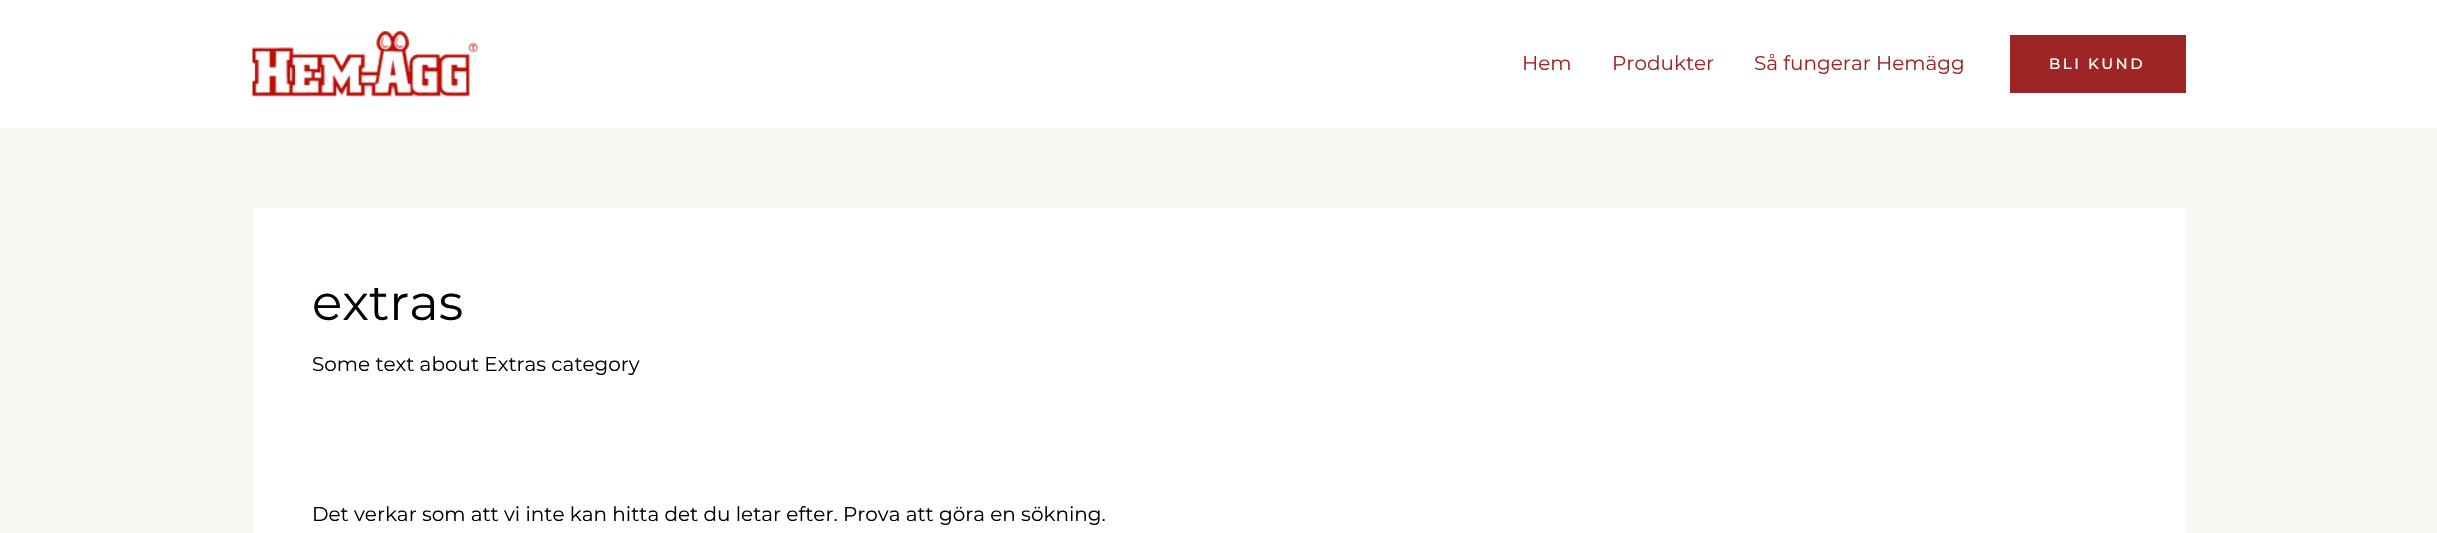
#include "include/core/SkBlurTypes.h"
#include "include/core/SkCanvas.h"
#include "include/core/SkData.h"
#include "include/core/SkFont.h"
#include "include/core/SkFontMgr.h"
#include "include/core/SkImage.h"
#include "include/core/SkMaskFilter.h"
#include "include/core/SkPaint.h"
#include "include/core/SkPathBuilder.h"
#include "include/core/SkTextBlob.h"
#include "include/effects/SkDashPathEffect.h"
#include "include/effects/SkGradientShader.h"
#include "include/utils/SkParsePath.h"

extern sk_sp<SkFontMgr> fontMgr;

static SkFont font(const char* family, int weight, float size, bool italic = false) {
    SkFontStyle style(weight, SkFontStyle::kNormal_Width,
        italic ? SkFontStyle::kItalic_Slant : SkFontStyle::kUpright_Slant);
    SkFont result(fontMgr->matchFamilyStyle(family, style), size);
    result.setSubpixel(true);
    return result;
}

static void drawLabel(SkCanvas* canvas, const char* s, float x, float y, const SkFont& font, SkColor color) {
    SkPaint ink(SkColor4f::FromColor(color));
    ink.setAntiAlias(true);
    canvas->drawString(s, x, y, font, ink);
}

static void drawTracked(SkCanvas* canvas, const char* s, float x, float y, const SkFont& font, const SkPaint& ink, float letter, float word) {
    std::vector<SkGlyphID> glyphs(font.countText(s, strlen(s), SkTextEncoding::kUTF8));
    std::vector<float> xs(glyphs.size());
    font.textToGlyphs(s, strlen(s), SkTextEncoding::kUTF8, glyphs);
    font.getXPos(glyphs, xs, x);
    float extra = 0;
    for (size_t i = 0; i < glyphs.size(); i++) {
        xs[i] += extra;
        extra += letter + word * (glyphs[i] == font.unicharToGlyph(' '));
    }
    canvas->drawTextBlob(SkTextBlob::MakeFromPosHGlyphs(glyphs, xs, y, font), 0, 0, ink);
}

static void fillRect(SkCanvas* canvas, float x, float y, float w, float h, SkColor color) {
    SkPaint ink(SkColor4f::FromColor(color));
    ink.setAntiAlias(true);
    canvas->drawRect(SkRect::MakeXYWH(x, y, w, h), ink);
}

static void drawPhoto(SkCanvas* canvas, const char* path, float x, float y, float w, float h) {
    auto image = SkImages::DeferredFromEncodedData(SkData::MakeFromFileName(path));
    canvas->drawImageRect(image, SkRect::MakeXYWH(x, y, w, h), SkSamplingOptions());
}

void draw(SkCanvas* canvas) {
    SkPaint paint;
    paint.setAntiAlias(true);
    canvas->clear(0xFFF8F7F3);
    fillRect(canvas, 0, 0, 2437, 128, 0xFFFFFFFF);
    drawPhoto(canvas, "assets/img1.png", 252, 31, 226, 66);
    SkFont font1 = font("Montserrat", 400, 20);
    drawLabel(canvas, "Hem", 1522, 70, font1, 0xFF9E2525);
    drawLabel(canvas, "Produkter", 1612, 70, font1, 0xFF9E2525);
    drawLabel(canvas, "Så fungerar Hemägg", 1754, 70, font1, 0xFF9E2525);
    fillRect(canvas, 2010, 35, 176, 58, 0xFF9E2525);
    SkFont font2 = font("Montserrat", 500, 15);
    paint.setColor(0xFFFFFFFF);
    drawTracked(canvas, "BLI KUND", 2049, 69, font2, paint, 2.5f, 0);
    fillRect(canvas, 253, 208, 1933, 325, 0xFFFFFFFF);
    SkFont font3 = font("Montserrat", 400, 50);
    drawLabel(canvas, "extras", 312, 320, font3, 0xFF000000);
    drawLabel(canvas, "Some text about Extras category", 312, 371, font1, 0xFF000000);
    drawLabel(canvas, "Det verkar som att vi inte kan hitta det du letar efter. Prova att göra en sökning.", 312, 521, font1, 0xFF000000);
}
